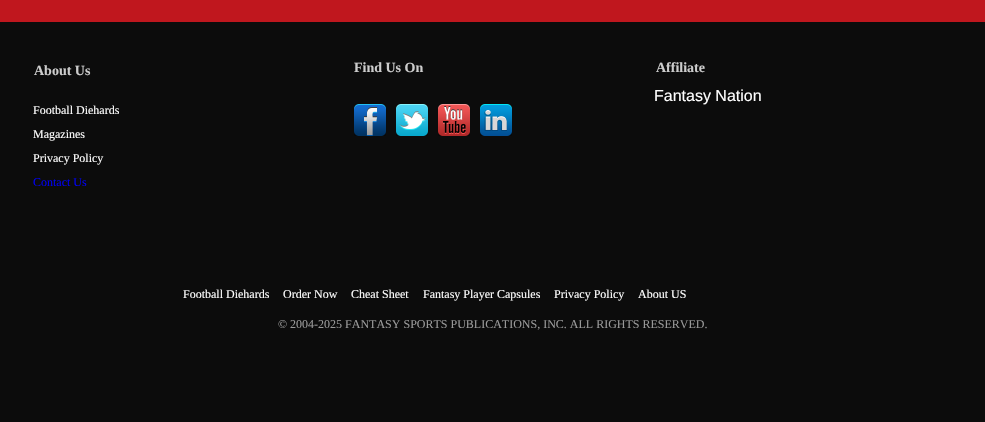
#include "include/core/SkBlurTypes.h"
#include "include/core/SkCanvas.h"
#include "include/core/SkData.h"
#include "include/core/SkFont.h"
#include "include/core/SkFontMgr.h"
#include "include/core/SkImage.h"
#include "include/core/SkMaskFilter.h"
#include "include/core/SkPaint.h"
#include "include/core/SkPathBuilder.h"
#include "include/core/SkTextBlob.h"
#include "include/effects/SkDashPathEffect.h"
#include "include/effects/SkGradientShader.h"
#include "include/utils/SkParsePath.h"

extern sk_sp<SkFontMgr> fontMgr;

static SkFont font(const char* family, int weight, float size, bool italic = false) {
    SkFontStyle style(weight, SkFontStyle::kNormal_Width,
        italic ? SkFontStyle::kItalic_Slant : SkFontStyle::kUpright_Slant);
    SkFont result(fontMgr->matchFamilyStyle(family, style), size);
    result.setSubpixel(true);
    return result;
}

static void drawLabel(SkCanvas* canvas, const char* s, float x, float y, const SkFont& font, SkColor color) {
    SkPaint ink(SkColor4f::FromColor(color));
    ink.setAntiAlias(true);
    canvas->drawString(s, x, y, font, ink);
}

static void fillRect(SkCanvas* canvas, float x, float y, float w, float h, SkColor color) {
    SkPaint ink(SkColor4f::FromColor(color));
    ink.setAntiAlias(true);
    canvas->drawRect(SkRect::MakeXYWH(x, y, w, h), ink);
}

static void drawPhoto(SkCanvas* canvas, const char* path, float x, float y, float w, float h) {
    auto image = SkImages::DeferredFromEncodedData(SkData::MakeFromFileName(path));
    canvas->drawImageRect(image, SkRect::MakeXYWH(x, y, w, h), SkSamplingOptions());
}

void draw(SkCanvas* canvas) {
    SkPaint paint;
    paint.setAntiAlias(true);
    canvas->clear(0xFF0C0C0C);
    fillRect(canvas, 0, 0, 985, 22, 0xFFC0171E);
    SkFont font1 = font("Liberation Serif", 700, 14);
    drawLabel(canvas, "About Us", 34, 75, font1, 0xFFCCCCCC);
    SkFont font2 = font("Liberation Serif", 400, 12);
    drawLabel(canvas, "Football Diehards", 33, 114, font2, 0xFFFFFFFF);
    drawLabel(canvas, "Magazines", 33, 138, font2, 0xFFFFFFFF);
    drawLabel(canvas, "Privacy Policy", 33, 162, font2, 0xFFFFFFFF);
    drawLabel(canvas, "Contact Us", 33, 186, font2, 0xFF0000EE);
    drawLabel(canvas, "Find Us On", 354, 72, font1, 0xFFCCCCCC);
    drawPhoto(canvas, "assets/img1.png", 354, 104, 32, 32);
    drawPhoto(canvas, "assets/img2.png", 396, 104, 32, 32);
    drawPhoto(canvas, "assets/img3.png", 438, 104, 32, 32);
    drawPhoto(canvas, "assets/img4.png", 480, 104, 32, 32);
    drawLabel(canvas, "Affiliate", 656, 72, font1, 0xFFCCCCCC);
    SkFont font3 = font("Liberation Sans", 400, 16);
    drawLabel(canvas, "Fantasy Nation", 654, 101, font3, 0xFFFFFFFF);
    drawLabel(canvas, "Football Diehards", 183, 298, font2, 0xFFFFFFFF);
    drawLabel(canvas, "Order Now", 283, 298, font2, 0xFFFFFFFF);
    drawLabel(canvas, "Cheat Sheet", 351, 298, font2, 0xFFFFFFFF);
    drawLabel(canvas, "Fantasy Player Capsules", 423, 298, font2, 0xFFFFFFFF);
    drawLabel(canvas, "Privacy Policy", 554, 298, font2, 0xFFFFFFFF);
    drawLabel(canvas, "About US", 638, 298, font2, 0xFFFFFFFF);
    drawLabel(canvas, "© 2004-2025 FANTASY SPORTS PUBLICATIONS, INC. ALL RIGHTS RESERVED.", 278, 328, font2, 0xFF999999);
}
